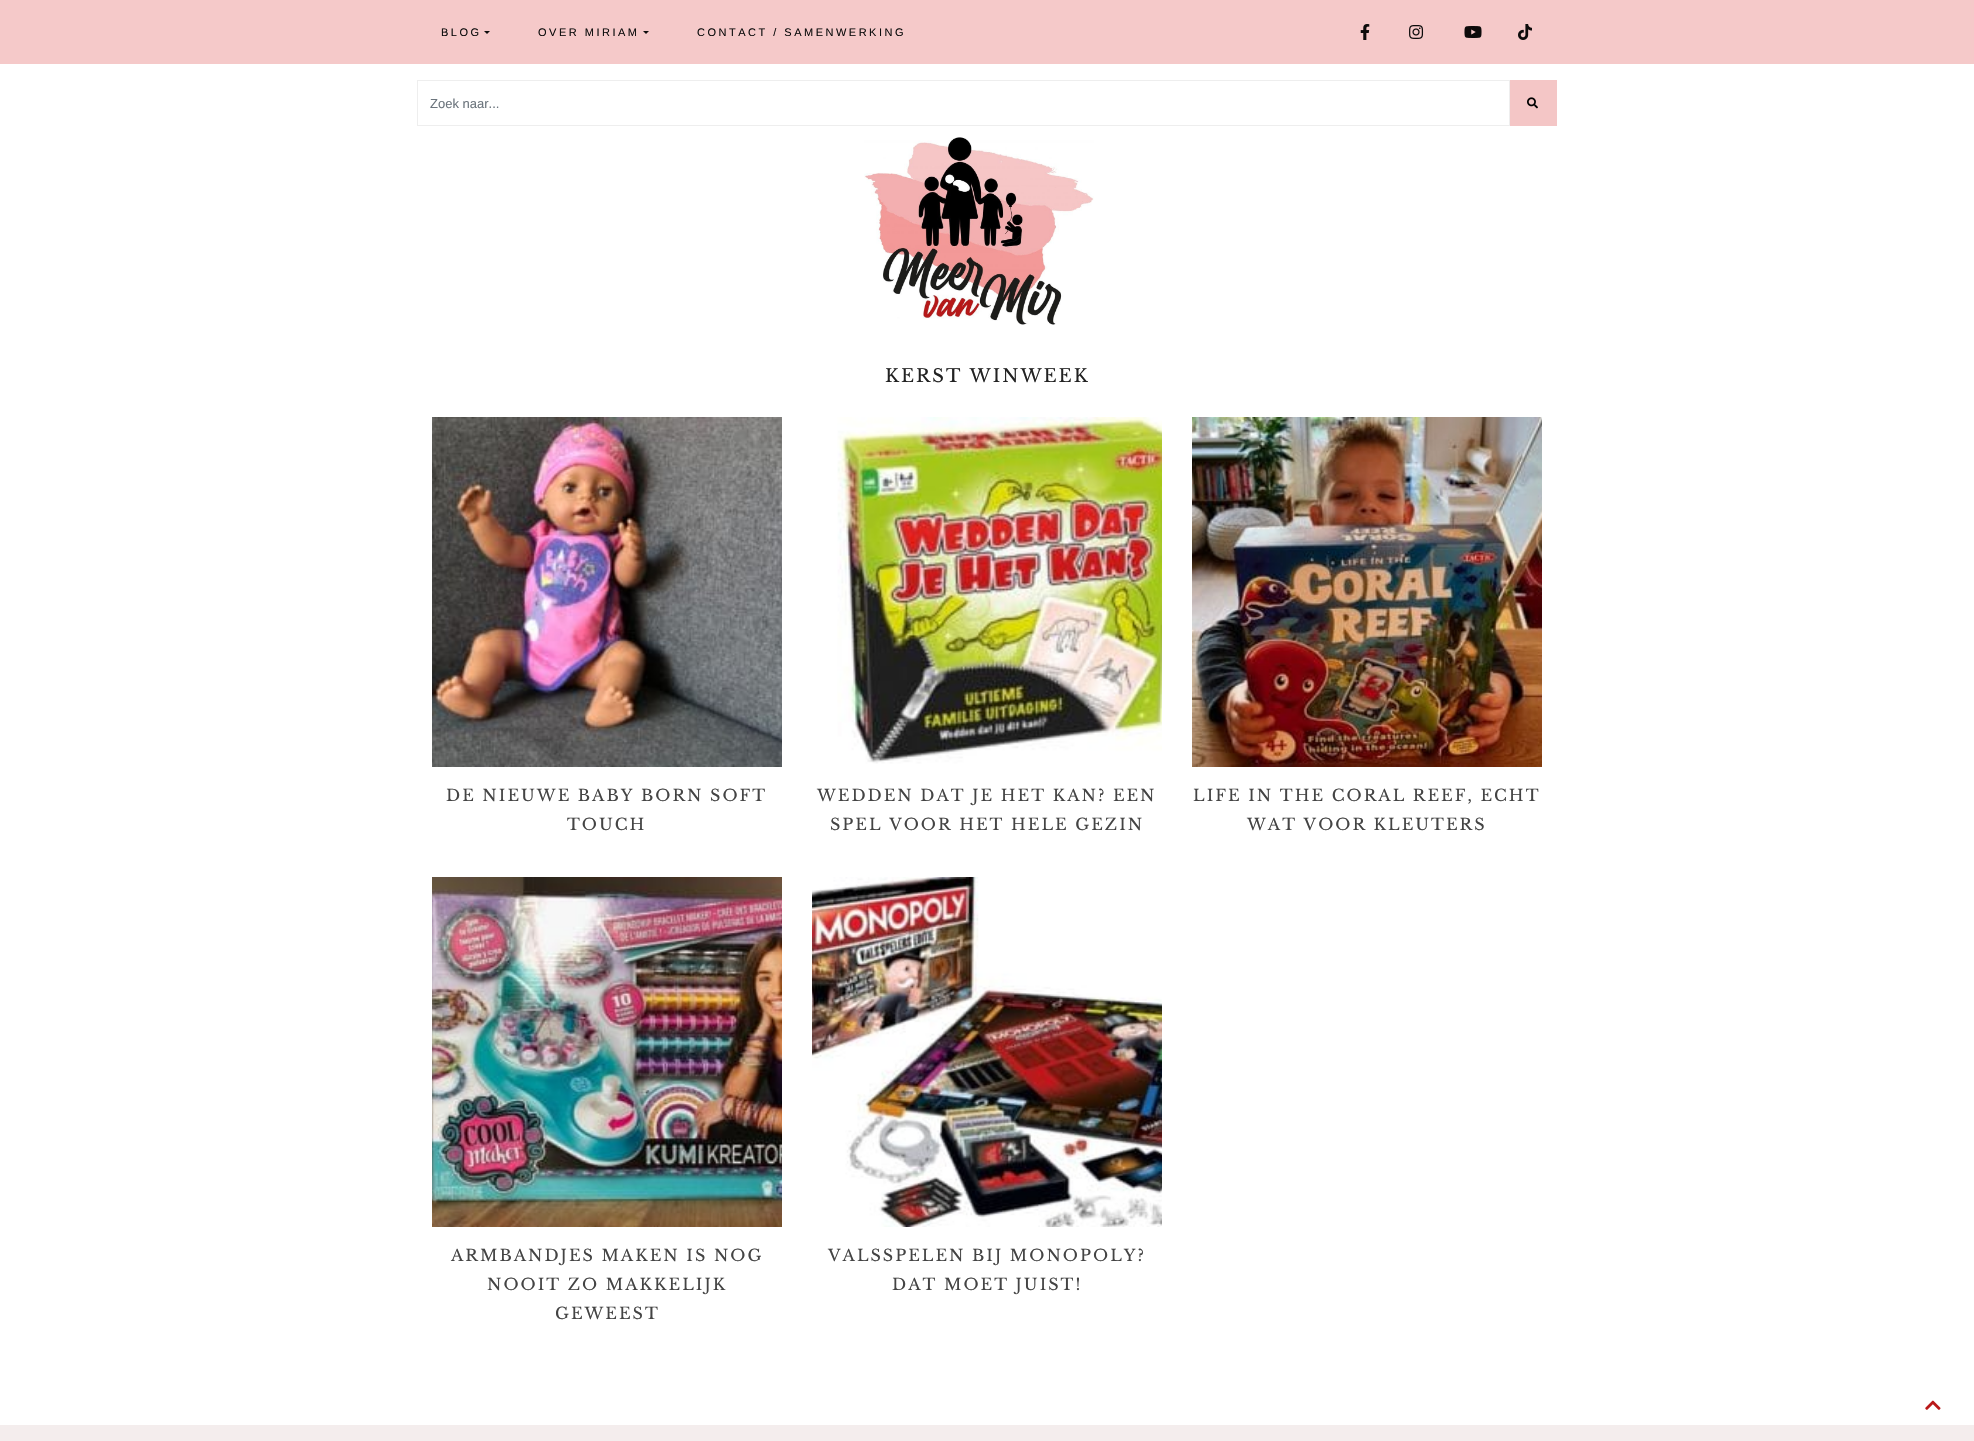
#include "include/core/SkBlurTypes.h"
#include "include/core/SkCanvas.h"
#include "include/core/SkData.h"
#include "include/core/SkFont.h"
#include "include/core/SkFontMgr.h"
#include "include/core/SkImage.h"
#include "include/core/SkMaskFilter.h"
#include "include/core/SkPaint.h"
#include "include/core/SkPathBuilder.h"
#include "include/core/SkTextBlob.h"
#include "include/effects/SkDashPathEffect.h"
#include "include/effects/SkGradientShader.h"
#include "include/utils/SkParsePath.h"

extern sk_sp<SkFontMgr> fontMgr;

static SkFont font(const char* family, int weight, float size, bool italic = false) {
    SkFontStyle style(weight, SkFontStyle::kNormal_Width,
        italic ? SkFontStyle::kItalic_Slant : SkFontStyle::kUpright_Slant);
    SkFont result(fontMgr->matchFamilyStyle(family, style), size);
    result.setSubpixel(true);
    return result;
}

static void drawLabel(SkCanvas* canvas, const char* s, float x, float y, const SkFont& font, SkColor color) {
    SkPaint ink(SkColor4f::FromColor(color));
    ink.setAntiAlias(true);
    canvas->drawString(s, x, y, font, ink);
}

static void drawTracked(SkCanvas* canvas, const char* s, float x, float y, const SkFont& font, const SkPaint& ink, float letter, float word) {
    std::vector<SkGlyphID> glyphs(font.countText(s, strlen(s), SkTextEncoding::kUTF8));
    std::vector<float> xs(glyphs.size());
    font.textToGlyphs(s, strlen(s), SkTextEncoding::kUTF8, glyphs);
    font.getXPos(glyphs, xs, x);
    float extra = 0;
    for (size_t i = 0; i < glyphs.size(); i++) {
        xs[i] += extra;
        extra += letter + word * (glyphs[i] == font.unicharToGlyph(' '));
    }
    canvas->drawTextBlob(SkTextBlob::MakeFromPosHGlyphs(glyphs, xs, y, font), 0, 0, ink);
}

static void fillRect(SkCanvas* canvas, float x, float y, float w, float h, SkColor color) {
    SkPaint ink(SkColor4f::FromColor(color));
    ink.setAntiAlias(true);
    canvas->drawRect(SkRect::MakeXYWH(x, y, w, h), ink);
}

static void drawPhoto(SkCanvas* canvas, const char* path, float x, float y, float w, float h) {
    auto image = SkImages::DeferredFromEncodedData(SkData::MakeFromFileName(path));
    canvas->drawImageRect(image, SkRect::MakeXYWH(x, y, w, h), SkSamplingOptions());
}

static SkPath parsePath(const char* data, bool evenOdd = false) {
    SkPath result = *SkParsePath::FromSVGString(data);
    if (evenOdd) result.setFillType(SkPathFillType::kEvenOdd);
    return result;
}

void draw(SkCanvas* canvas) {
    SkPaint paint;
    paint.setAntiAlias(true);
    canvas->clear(0xFFFFFFFF);
    fillRect(canvas, 0, 0, 1974, 64, 0xFFF5C9C9);
    SkFont font1 = font("Liberation Sans", 400, 11);
    paint.setColor(0xFF0D0D0D);
    drawTracked(canvas, "BLOG", 441, 36, font1, paint, 2.5f, 0);
    canvas->drawPath(parsePath("M484 31H490L487 34Z"), paint);
    drawTracked(canvas, "OVER MIRIAM", 538, 36, font1, paint, 2.5f, 0);
    canvas->drawPath(parsePath("M643 31H649L646 34Z"), paint);
    drawTracked(canvas, "CONTACT / SAMENWERKING", 697, 36, font1, paint, 2.5f, 0);
    drawPhoto(canvas, "assets/img1.png", 1360, 24, 10, 16);
    drawPhoto(canvas, "assets/img2.png", 1409, 25, 15, 14);
    drawPhoto(canvas, "assets/img3.png", 1464, 26, 18, 12);
    drawPhoto(canvas, "assets/img4.png", 1518, 24, 14, 16);
    paint.setStroke(true);
    paint.setStrokeWidth(1);
    paint.setColor(0xFFEEEEEE);
    canvas->drawRect(SkRect::MakeXYWH(417.5f, 80.5f, 1092, 45), paint);
    SkFont font2 = font("Liberation Sans", 400, 13);
    drawLabel(canvas, "Zoek naar...", 430, 108, font2, 0xFF6C757D);
    fillRect(canvas, 1510, 80, 47, 46, 0xFFF4C6C6);
    drawPhoto(canvas, "assets/img5.png", 1527, 97, 11, 12);
    drawPhoto(canvas, "assets/img6.png", 864, 137, 230, 188);
    SkFont font3 = font("Libre Baskerville", 400, 18);
    paint.setStroke(false);
    paint.setColor(0xFF222222);
    drawTracked(canvas, "KERST WINWEEK", 885, 382, font3, paint, 2, 0);
    drawPhoto(canvas, "assets/img7.png", 432, 417, 350, 350);
    SkFont font4 = font("Libre Baskerville", 400, 16);
    paint.setColor(0xFF444444);
    drawTracked(canvas, "DE NIEUWE BABY BORN SOFT", 446, 801, font4, paint, 2, 0);
    drawTracked(canvas, "TOUCH", 567, 830, font4, paint, 2, 0);
    drawPhoto(canvas, "assets/img8.png", 837, 417, 325, 347);
    drawTracked(canvas, "WEDDEN DAT JE HET KAN? EEN", 817, 801, font4, paint, 2, 0);
    drawTracked(canvas, "SPEL VOOR HET HELE GEZIN", 830, 830, font4, paint, 2, 0);
    drawPhoto(canvas, "assets/img9.png", 1192, 417, 350, 350);
    drawTracked(canvas, "LIFE IN THE CORAL REEF, ECHT", 1193, 801, font4, paint, 2, 0);
    drawTracked(canvas, "WAT VOOR KLEUTERS", 1247, 830, font4, paint, 2, 0);
    drawPhoto(canvas, "assets/img10.png", 432, 877, 350, 350);
    drawTracked(canvas, "ARMBANDJES MAKEN IS NOG", 451, 1261, font4, paint, 2, 0);
    drawTracked(canvas, "NOOIT ZO MAKKELIJK", 487, 1290, font4, paint, 2, 0);
    drawTracked(canvas, "GEWEEST", 555, 1319, font4, paint, 2, 0);
    drawPhoto(canvas, "assets/img11.png", 812, 877, 350, 350);
    drawTracked(canvas, "VALSSPELEN BIJ MONOPOLY?", 828, 1261, font4, paint, 2, 0);
    drawTracked(canvas, "DAT MOET JUIST!", 892, 1290, font4, paint, 2, 0);
    drawPhoto(canvas, "assets/img12.png", 1925, 1400, 16, 10);
    fillRect(canvas, 0, 1425, 1974, 16, 0xFFF4EDED);
}
